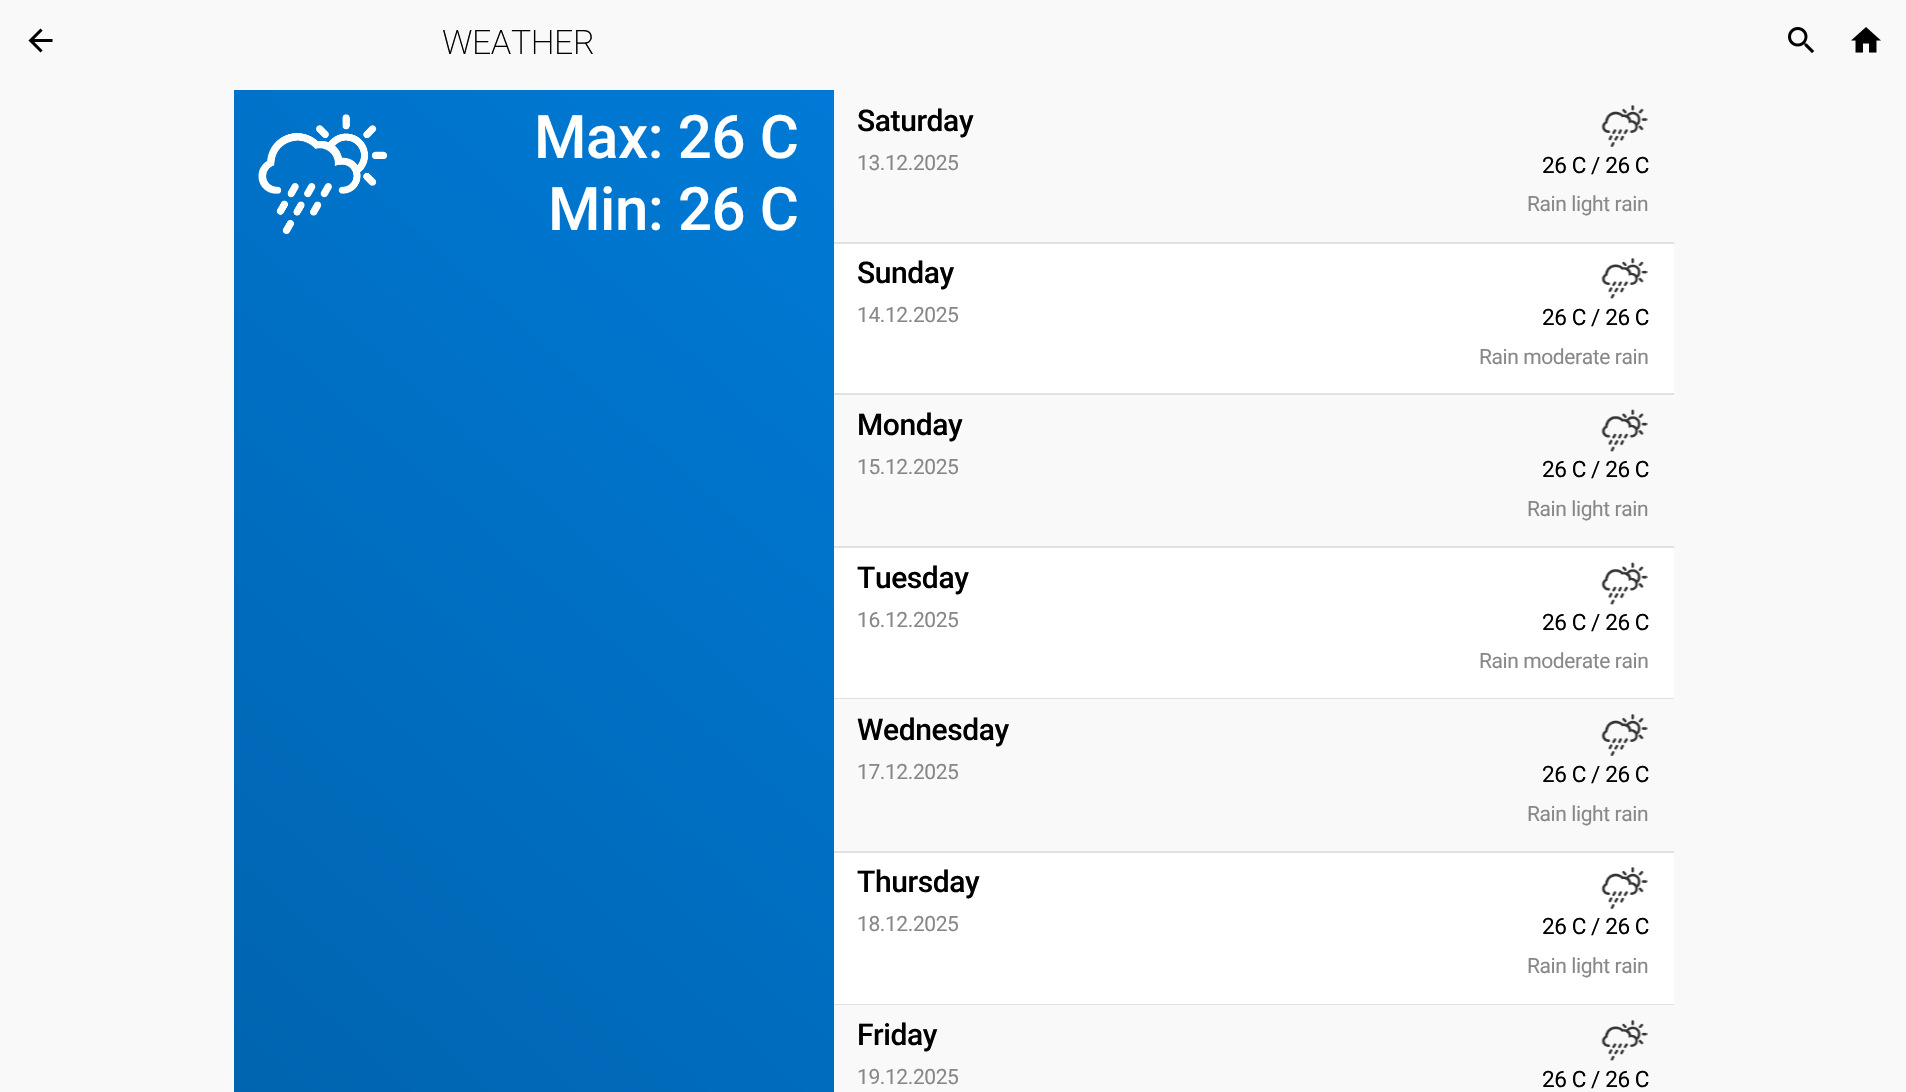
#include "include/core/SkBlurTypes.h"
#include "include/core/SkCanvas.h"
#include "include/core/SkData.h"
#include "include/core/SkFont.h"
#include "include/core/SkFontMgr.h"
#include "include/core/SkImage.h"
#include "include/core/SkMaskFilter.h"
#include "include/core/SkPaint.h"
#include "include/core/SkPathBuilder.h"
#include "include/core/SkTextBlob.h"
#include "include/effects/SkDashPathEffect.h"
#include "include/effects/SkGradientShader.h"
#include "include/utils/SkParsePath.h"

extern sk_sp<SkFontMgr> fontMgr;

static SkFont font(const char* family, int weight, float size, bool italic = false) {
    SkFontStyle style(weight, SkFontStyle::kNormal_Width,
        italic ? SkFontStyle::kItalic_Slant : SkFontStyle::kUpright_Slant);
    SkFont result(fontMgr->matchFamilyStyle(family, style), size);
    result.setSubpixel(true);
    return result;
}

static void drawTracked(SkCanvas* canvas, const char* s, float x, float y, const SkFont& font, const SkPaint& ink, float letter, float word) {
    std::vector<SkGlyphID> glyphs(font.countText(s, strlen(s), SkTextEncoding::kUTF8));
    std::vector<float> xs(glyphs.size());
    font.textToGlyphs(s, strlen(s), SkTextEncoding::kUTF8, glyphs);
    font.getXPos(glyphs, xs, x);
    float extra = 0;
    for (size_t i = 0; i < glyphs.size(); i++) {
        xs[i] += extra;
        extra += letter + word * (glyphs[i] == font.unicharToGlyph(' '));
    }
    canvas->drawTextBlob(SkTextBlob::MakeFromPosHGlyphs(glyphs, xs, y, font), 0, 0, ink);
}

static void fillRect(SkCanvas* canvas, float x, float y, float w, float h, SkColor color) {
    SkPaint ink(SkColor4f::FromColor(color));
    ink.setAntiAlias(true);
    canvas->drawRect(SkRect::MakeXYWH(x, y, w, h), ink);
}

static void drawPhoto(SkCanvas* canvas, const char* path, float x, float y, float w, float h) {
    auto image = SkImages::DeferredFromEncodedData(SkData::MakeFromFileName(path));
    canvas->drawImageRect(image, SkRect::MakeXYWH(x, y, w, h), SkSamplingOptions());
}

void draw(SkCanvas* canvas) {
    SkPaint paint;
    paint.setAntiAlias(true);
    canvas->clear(0xFFF9F9F9);
    drawPhoto(canvas, "assets/img1.png", 28, 28, 25, 25);
    SkFont font1 = font("Roboto", 200, 33.75f);
    paint.setColor(0xFF000000);
    drawTracked(canvas, "WEATHER", 442, 54, font1, paint, -0.4f, 0);
    drawPhoto(canvas, "assets/img2.png", 1788, 27, 27, 27);
    drawPhoto(canvas, "assets/img3.png", 1851, 27, 30, 26);
    {
        const SkColor colors[] = {0xFF0091FF, 0xFF00365E};
        const float stops[] = {0, 1};
        const SkPoint ends[] = {{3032, 448}, {-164, 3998}};
        paint.setShader(SkGradientShader::MakeLinear(ends, colors, stops, 2, SkTileMode::kClamp));
        paint.setAlpha(255);
    }
    canvas->drawRect(SkRect::MakeXYWH(234, 90, 600, 1002), paint);
    drawPhoto(canvas, "assets/img4.png", 258, 114, 129, 120);
    SkFont font2 = font("Roboto", 500, 60);
    paint.setShader(nullptr);
    paint.setColor(0xFFFFFFFF);
    drawTracked(canvas, "Max: 26 C", 534, 158, font2, paint, -0.4f, 0);
    drawTracked(canvas, "Min: 26 C", 548, 230, font2, paint, -0.4f, 0);
    fillRect(canvas, 834, 244, 840, 760, 0xFFFFFFFF);
    fillRect(canvas, 834, 242, 840, 2, 0xFFE1E1E1);
    SkFont font3 = font("Roboto", 500, 30);
    paint.setColor(0xFF000000);
    drawTracked(canvas, "Saturday", 857, 131, font3, paint, -0.4f, 0);
    SkFont font4 = font("Roboto", 400, 21);
    paint.setColor(0xFF888888);
    drawTracked(canvas, "13.12.2025", 857, 170, font4, paint, -0.4f, 0);
    drawPhoto(canvas, "assets/img5.png", 1601, 105, 47, 42);
    SkFont font5 = font("Roboto", 400, 22.5f);
    paint.setColor(0xFF000000);
    drawTracked(canvas, "26 C / 26 C", 1542, 173, font5, paint, -0.4f, 0);
    paint.setColor(0xFF888888);
    drawTracked(canvas, "Rain light rain", 1527, 211, font4, paint, -0.4f, 0);
    fillRect(canvas, 834, 393, 840, 2, 0xFFE1E1E1);
    paint.setColor(0xFF000000);
    drawTracked(canvas, "Sunday", 857, 283, font3, paint, -0.4f, 0);
    paint.setColor(0xFF888888);
    drawTracked(canvas, "14.12.2025", 857, 322, font4, paint, -0.4f, 0);
    drawPhoto(canvas, "assets/img6.png", 1601, 258, 47, 41);
    paint.setColor(0xFF000000);
    drawTracked(canvas, "26 C / 26 C", 1542, 325, font5, paint, -0.4f, 0);
    paint.setColor(0xFF888888);
    drawTracked(canvas, "Rain moderate rain", 1479, 364, font4, paint, -0.4f, 0);
    fillRect(canvas, 834, 395, 840, 151, 0xFFF9F9F9);
    fillRect(canvas, 834, 546, 840, 2, 0xFFE1E1E1);
    paint.setColor(0xFF000000);
    drawTracked(canvas, "Monday", 857, 435, font3, paint, -0.4f, 0);
    paint.setColor(0xFF888888);
    drawTracked(canvas, "15.12.2025", 857, 474, font4, paint, -0.4f, 0);
    drawPhoto(canvas, "assets/img7.png", 1601, 409, 47, 43);
    paint.setColor(0xFF000000);
    drawTracked(canvas, "26 C / 26 C", 1542, 477, font5, paint, -0.4f, 0);
    paint.setColor(0xFF888888);
    drawTracked(canvas, "Rain light rain", 1527, 516, font4, paint, -0.4f, 0);
    fillRect(canvas, 834, 698, 840, 1, 0xFFE1E1E1);
    paint.setColor(0xFF000000);
    drawTracked(canvas, "Tuesday", 857, 588, font3, paint, -0.4f, 0);
    paint.setColor(0xFF888888);
    drawTracked(canvas, "16.12.2025", 857, 627, font4, paint, -0.4f, 0);
    drawPhoto(canvas, "assets/img8.png", 1601, 562, 47, 43);
    paint.setColor(0xFF000000);
    drawTracked(canvas, "26 C / 26 C", 1542, 630, font5, paint, -0.4f, 0);
    paint.setColor(0xFF888888);
    drawTracked(canvas, "Rain moderate rain", 1479, 668, font4, paint, -0.4f, 0);
    fillRect(canvas, 834, 699, 840, 152, 0xFFF9F9F9);
    fillRect(canvas, 834, 851, 840, 2, 0xFFE1E1E1);
    paint.setColor(0xFF000000);
    drawTracked(canvas, "Wednesday", 857, 740, font3, paint, -0.4f, 0);
    paint.setColor(0xFF888888);
    drawTracked(canvas, "17.12.2025", 857, 779, font4, paint, -0.4f, 0);
    drawPhoto(canvas, "assets/img5.png", 1601, 714, 47, 42);
    paint.setColor(0xFF000000);
    drawTracked(canvas, "26 C / 26 C", 1542, 782, font5, paint, -0.4f, 0);
    paint.setColor(0xFF888888);
    drawTracked(canvas, "Rain light rain", 1527, 821, font4, paint, -0.4f, 0);
    fillRect(canvas, 834, 1004, 840, 1, 0xFFE1E1E1);
    paint.setColor(0xFF000000);
    drawTracked(canvas, "Thursday", 857, 892, font3, paint, -0.4f, 0);
    paint.setColor(0xFF888888);
    drawTracked(canvas, "18.12.2025", 857, 931, font4, paint, -0.4f, 0);
    drawPhoto(canvas, "assets/img9.png", 1601, 867, 47, 42);
    paint.setColor(0xFF000000);
    drawTracked(canvas, "26 C / 26 C", 1542, 934, font5, paint, -0.4f, 0);
    paint.setColor(0xFF888888);
    drawTracked(canvas, "Rain light rain", 1527, 973, font4, paint, -0.4f, 0);
    paint.setColor(0xFF000000);
    drawTracked(canvas, "Friday", 857, 1045, font3, paint, -0.4f, 0);
    paint.setColor(0xFF888888);
    drawTracked(canvas, "19.12.2025", 857, 1084, font4, paint, -0.4f, 0);
    drawPhoto(canvas, "assets/img10.png", 1601, 1020, 47, 41);
    paint.setColor(0xFF000000);
    drawTracked(canvas, "26 C / 26 C", 1542, 1087, font5, paint, -0.4f, 0);
}
